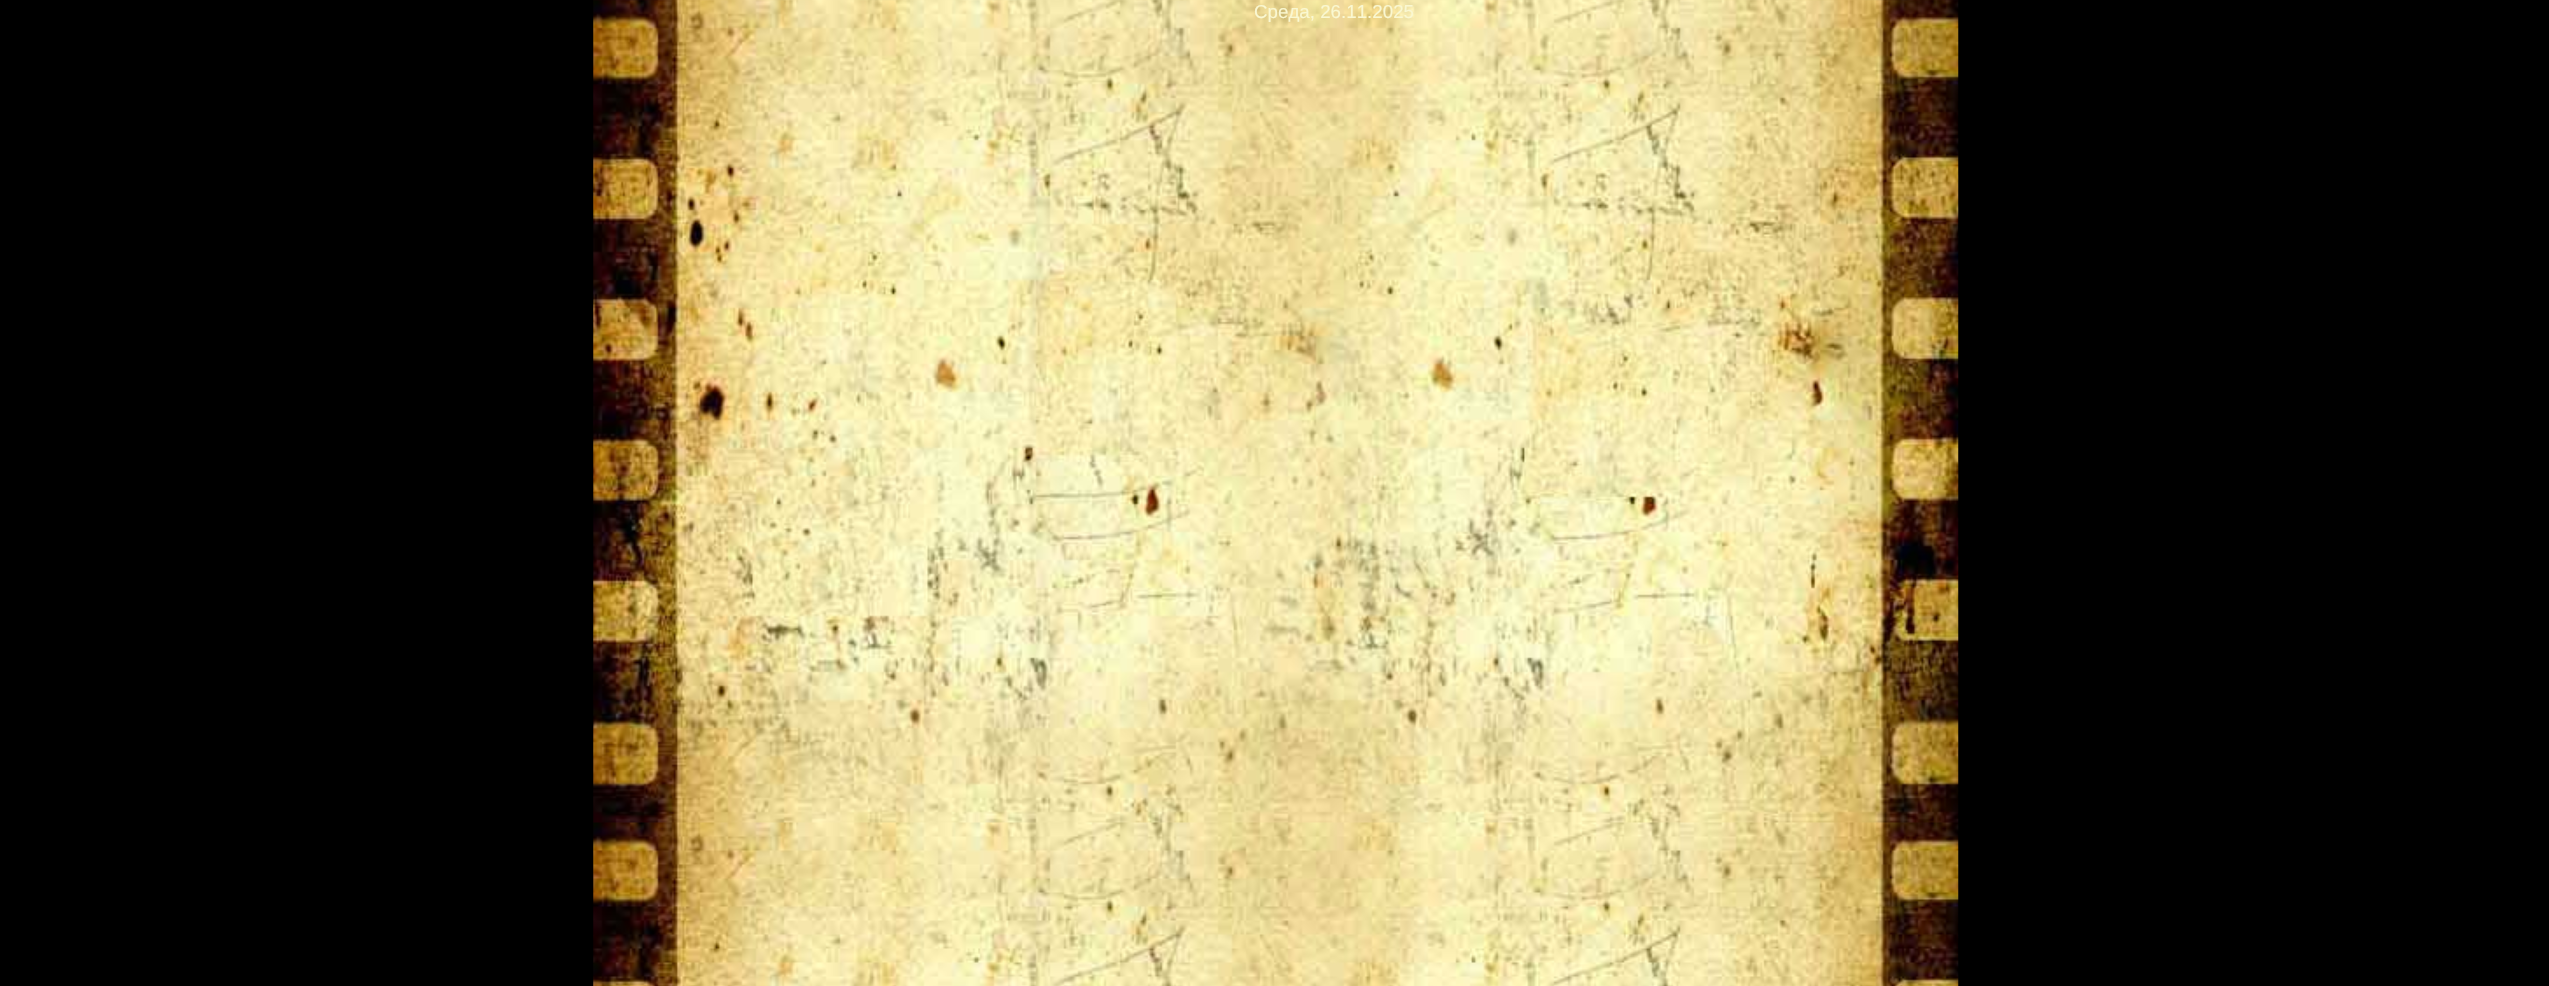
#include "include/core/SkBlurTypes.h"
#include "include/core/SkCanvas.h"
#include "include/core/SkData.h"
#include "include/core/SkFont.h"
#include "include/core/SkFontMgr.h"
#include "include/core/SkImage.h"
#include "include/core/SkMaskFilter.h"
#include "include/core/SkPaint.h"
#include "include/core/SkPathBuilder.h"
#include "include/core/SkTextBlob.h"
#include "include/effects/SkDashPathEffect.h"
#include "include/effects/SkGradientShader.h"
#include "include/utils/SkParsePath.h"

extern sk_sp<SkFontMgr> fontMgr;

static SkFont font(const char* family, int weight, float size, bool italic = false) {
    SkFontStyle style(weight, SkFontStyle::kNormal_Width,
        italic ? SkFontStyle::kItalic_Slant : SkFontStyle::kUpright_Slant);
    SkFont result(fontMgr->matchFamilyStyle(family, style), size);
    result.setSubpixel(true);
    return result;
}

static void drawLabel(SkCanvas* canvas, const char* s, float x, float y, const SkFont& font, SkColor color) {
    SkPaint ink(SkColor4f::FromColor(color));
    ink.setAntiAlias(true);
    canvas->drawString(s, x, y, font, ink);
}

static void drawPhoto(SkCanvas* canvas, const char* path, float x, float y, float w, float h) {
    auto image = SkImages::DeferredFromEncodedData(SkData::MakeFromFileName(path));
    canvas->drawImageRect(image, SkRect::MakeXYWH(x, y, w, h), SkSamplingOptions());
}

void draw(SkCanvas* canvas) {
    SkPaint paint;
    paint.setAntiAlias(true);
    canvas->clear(0xFF000000);
    drawPhoto(canvas, "assets/img1.png", 593, 0, 1366, 986);
    SkFont font1 = font("Liberation Sans", 400, 18.75f);
    drawLabel(canvas, "Среда, 26.11.2025", 1254, 18, font1, 0xFFFAF8D1);
}
